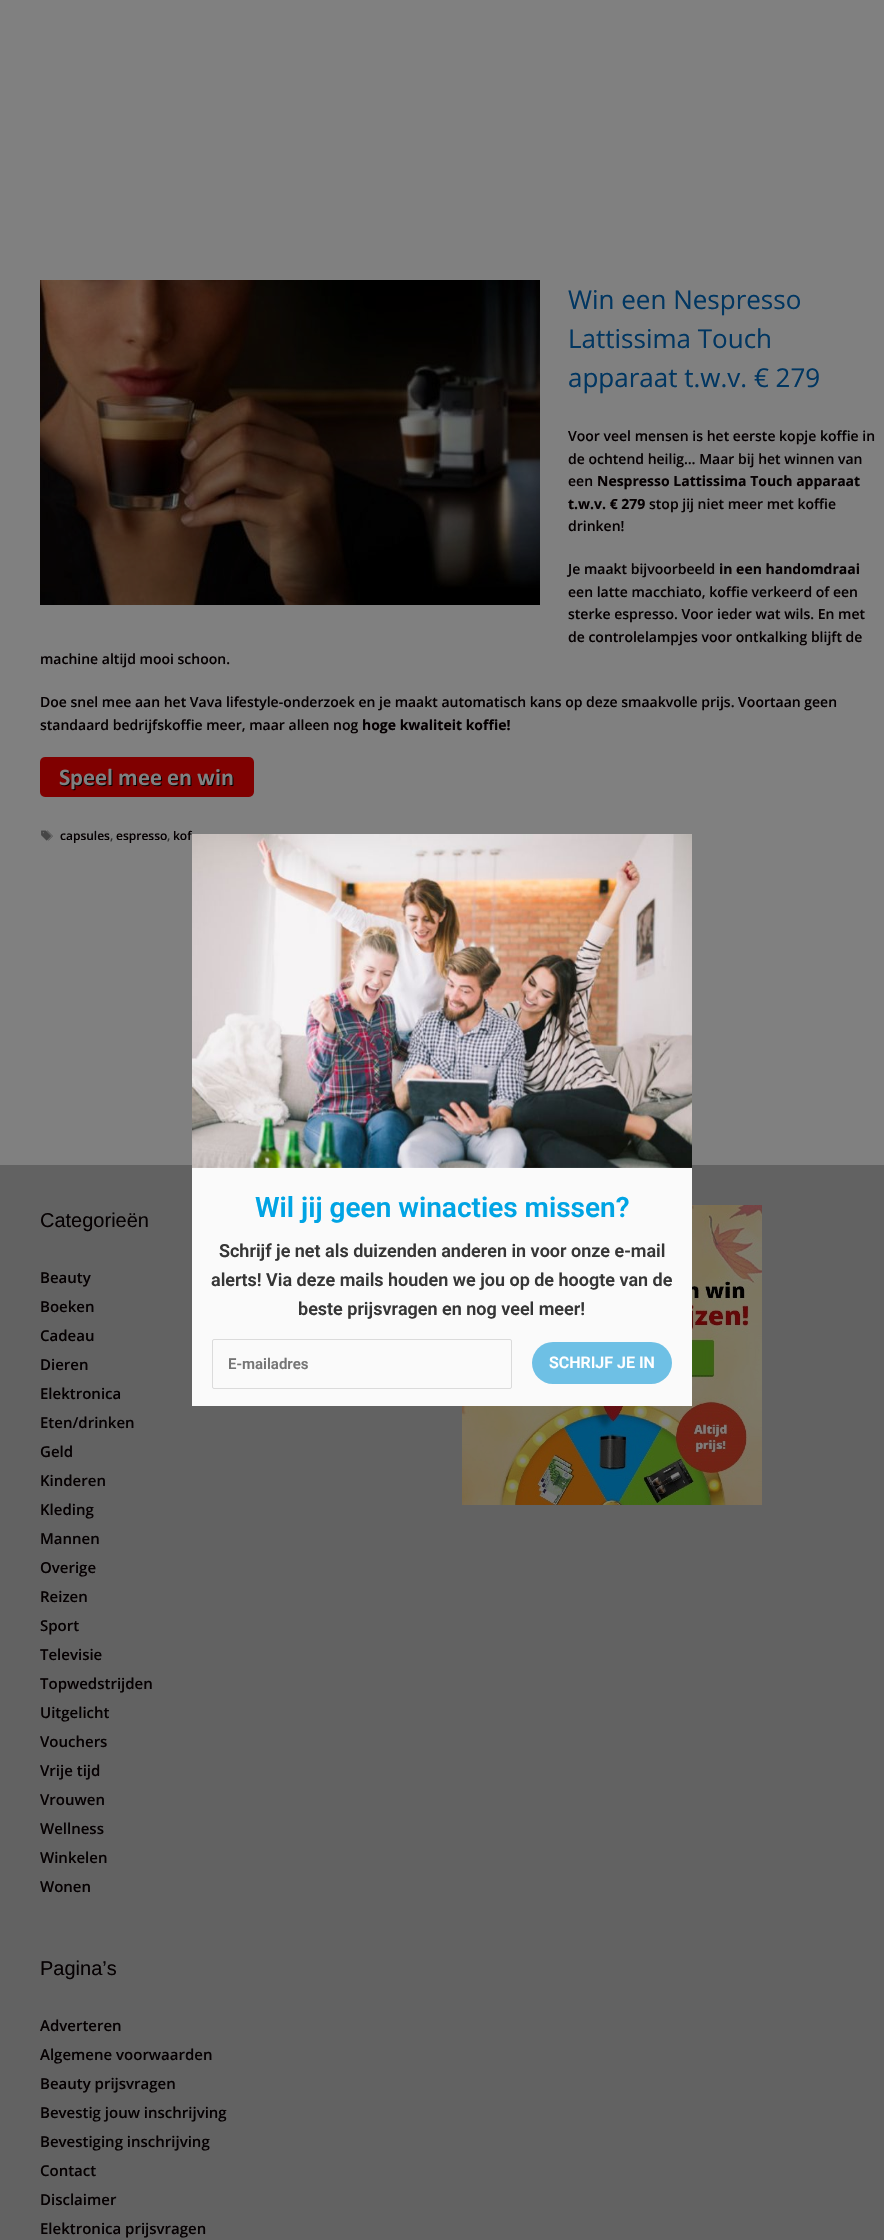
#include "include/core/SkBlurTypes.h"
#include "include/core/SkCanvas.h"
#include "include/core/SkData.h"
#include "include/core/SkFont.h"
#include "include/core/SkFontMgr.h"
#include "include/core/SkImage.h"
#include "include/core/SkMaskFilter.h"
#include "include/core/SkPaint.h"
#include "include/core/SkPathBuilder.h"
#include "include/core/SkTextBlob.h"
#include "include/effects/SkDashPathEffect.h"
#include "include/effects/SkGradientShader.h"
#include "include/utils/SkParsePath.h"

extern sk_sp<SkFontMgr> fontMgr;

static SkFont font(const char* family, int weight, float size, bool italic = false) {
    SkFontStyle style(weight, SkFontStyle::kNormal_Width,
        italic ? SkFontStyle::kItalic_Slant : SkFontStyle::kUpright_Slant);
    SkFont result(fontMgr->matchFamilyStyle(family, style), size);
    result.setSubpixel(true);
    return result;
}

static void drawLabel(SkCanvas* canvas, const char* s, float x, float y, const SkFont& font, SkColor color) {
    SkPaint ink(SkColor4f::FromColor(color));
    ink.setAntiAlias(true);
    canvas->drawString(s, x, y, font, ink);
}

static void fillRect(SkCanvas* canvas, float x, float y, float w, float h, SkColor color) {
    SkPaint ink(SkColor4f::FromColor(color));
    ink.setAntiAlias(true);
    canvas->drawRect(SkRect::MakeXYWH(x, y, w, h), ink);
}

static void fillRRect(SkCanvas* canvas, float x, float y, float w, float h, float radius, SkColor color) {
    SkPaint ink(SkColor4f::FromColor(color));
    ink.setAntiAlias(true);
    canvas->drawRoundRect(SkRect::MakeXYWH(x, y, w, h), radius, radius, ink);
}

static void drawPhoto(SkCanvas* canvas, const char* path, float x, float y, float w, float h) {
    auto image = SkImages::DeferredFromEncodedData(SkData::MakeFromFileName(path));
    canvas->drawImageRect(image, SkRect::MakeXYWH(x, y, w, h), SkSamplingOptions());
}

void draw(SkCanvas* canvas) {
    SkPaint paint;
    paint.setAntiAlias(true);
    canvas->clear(0xFF808080);
    drawPhoto(canvas, "assets/img1.png", 40, 280, 500, 325);
    SkFont font1 = font("Open Sans", 400, 26);
    drawLabel(canvas, "Win een Nespresso", 568, 309, font1, 0xFF013661);
    drawLabel(canvas, "Lattissima Touch", 568, 348, font1, 0xFF013661);
    drawLabel(canvas, "apparaat t.w.v. € 279", 568, 387, font1, 0xFF013661);
    SkFont font2 = font("Open Sans", 600, 14);
    drawLabel(canvas, "Voor veel mensen is het eerste kopje koffie in", 568, 441, font2, 0xFF050001);
    drawLabel(canvas, "de ochtend heilig… Maar bij het winnen van", 568, 464, font2, 0xFF050001);
    drawLabel(canvas, "een", 568, 486, font2, 0xFF050001);
    SkFont font3 = font("Open Sans", 700, 14);
    drawLabel(canvas, "Nespresso Lattissima Touch apparaat", 597, 486, font3, 0xFF050001);
    drawLabel(canvas, "t.w.v. € 279", 568, 509, font3, 0xFF050001);
    drawLabel(canvas, "stop jij niet meer met koffie", 649, 509, font2, 0xFF050001);
    drawLabel(canvas, "drinken!", 568, 531, font2, 0xFF050001);
    drawLabel(canvas, "Je maakt bijvoorbeeld", 568, 574, font2, 0xFF050001);
    drawLabel(canvas, "in een handomdraai", 719, 574, font3, 0xFF050001);
    drawLabel(canvas, "een latte macchiato, koffie verkeerd of een", 568, 597, font2, 0xFF050001);
    drawLabel(canvas, "sterke espresso. Voor ieder wat wils. En met", 568, 619, font2, 0xFF050001);
    drawLabel(canvas, "de controlelampjes voor ontkalking blijft de", 568, 642, font2, 0xFF050001);
    drawLabel(canvas, "machine altijd mooi schoon.", 40, 664, font2, 0xFF050001);
    drawLabel(canvas, "Doe snel mee aan het Vava lifestyle-onderzoek en je maakt automatisch kans op deze smaakvolle prijs. Voortaan geen", 40, 707, font2, 0xFF050001);
    drawLabel(canvas, "standaard bedrijfskoffie meer, maar alleen nog", 40, 730, font2, 0xFF050001);
    drawLabel(canvas, "hoge kwaliteit koffie!", 362, 730, font3, 0xFF050001);
    drawPhoto(canvas, "assets/img2.png", 40, 757, 214, 40);
    drawPhoto(canvas, "assets/img3.png", 41, 830, 12, 11);
    SkFont font4 = font("Open Sans", 600, 12);
    drawLabel(canvas, "capsules", 60, 840, font4, 0xFF050001);
    drawLabel(canvas, ",", 110, 840, font4, 0xFF2D2D2D);
    drawLabel(canvas, "espresso", 116, 840, font4, 0xFF050001);
    drawLabel(canvas, ",", 167, 840, font4, 0xFF2D2D2D);
    drawLabel(canvas, "kof", 173, 840, font4, 0xFF050001);
    fillRect(canvas, 0, 1165, 884, 1075, 0xFF626262);
    SkFont font5 = font("Liberation Sans", 400, 20);
    drawLabel(canvas, "Categorieën", 40, 1227, font5, 0xFF050001);
    SkFont font6 = font("Open Sans", 600, 15);
    drawLabel(canvas, "Beauty", 40, 1283, font6, 0xFF050001);
    drawLabel(canvas, "Boeken", 40, 1312, font6, 0xFF050001);
    drawLabel(canvas, "Cadeau", 40, 1341, font6, 0xFF050001);
    drawLabel(canvas, "Dieren", 40, 1370, font6, 0xFF050001);
    drawLabel(canvas, "Elektronica", 40, 1399, font6, 0xFF050001);
    drawLabel(canvas, "Eten/drinken", 40, 1428, font6, 0xFF050001);
    drawLabel(canvas, "Geld", 40, 1457, font6, 0xFF050001);
    drawLabel(canvas, "Kinderen", 40, 1486, font6, 0xFF050001);
    drawLabel(canvas, "Kleding", 40, 1515, font6, 0xFF050001);
    drawLabel(canvas, "Mannen", 40, 1544, font6, 0xFF050001);
    drawLabel(canvas, "Overige", 40, 1573, font6, 0xFF050001);
    drawLabel(canvas, "Reizen", 40, 1602, font6, 0xFF050001);
    drawLabel(canvas, "Sport", 40, 1631, font6, 0xFF050001);
    drawLabel(canvas, "Televisie", 40, 1660, font6, 0xFF050001);
    drawLabel(canvas, "Topwedstrijden", 40, 1689, font6, 0xFF050001);
    drawLabel(canvas, "Uitgelicht", 40, 1718, font6, 0xFF050001);
    drawLabel(canvas, "Vouchers", 40, 1747, font6, 0xFF050001);
    drawLabel(canvas, "Vrije tijd", 40, 1776, font6, 0xFF050001);
    drawLabel(canvas, "Vrouwen", 40, 1805, font6, 0xFF050001);
    drawLabel(canvas, "Wellness", 40, 1834, font6, 0xFF050001);
    drawLabel(canvas, "Winkelen", 40, 1863, font6, 0xFF050001);
    drawLabel(canvas, "Wonen", 40, 1892, font6, 0xFF050001);
    drawPhoto(canvas, "assets/img4.png", 462, 1205, 300, 300);
    drawLabel(canvas, "Pagina’s", 40, 1975, font5, 0xFF050001);
    drawLabel(canvas, "Adverteren", 40, 2031, font6, 0xFF050001);
    drawLabel(canvas, "Algemene voorwaarden", 40, 2060, font6, 0xFF050001);
    drawLabel(canvas, "Beauty prijsvragen", 40, 2089, font6, 0xFF050001);
    drawLabel(canvas, "Bevestig jouw inschrijving", 40, 2118, font6, 0xFF050001);
    drawLabel(canvas, "Bevestiging inschrijving", 40, 2147, font6, 0xFF050001);
    drawLabel(canvas, "Contact", 40, 2176, font6, 0xFF050001);
    drawLabel(canvas, "Disclaimer", 40, 2205, font6, 0xFF050001);
    drawLabel(canvas, "Elektronica prijsvragen", 40, 2234, font6, 0xFF050001);
    fillRect(canvas, 192, 1167, 500, 239, 0xFFFAFAFA);
    drawPhoto(canvas, "assets/img5.png", 192, 834, 500, 334);
    SkFont font7 = font("Roboto", 600, 28);
    drawLabel(canvas, "Wil jij geen winacties missen?", 255, 1217, font7, 0xFF00A4E4);
    SkFont font8 = font("Roboto", 600, 18);
    drawLabel(canvas, "Schrijf je net als duizenden anderen in voor onze e-mail", 219, 1257, font8, 0xFF363636);
    drawLabel(canvas, "alerts! Via deze mails houden we jou op de hoogte van de", 211, 1286, font8, 0xFF363636);
    drawLabel(canvas, "beste prijsvragen en nog veel meer!", 298, 1315, font8, 0xFF363636);
    paint.setStroke(true);
    paint.setStrokeWidth(1);
    paint.setColor(0xFFDBDBDB);
    canvas->drawRoundRect(SkRect::MakeXYWH(212.5f, 1339.5f, 299, 49), 1.5f, 1.5f, paint);
    SkFont font9 = font("Roboto", 600, 15);
    drawLabel(canvas, "E-mailadres", 228, 1369, font9, 0xFF757575);
    fillRRect(canvas, 532, 1342, 140, 42, 21, 0xFF6EC0E5);
    SkFont font10 = font("Roboto", 600, 16);
    drawLabel(canvas, "SCHRIJF JE IN", 549, 1368, font10, 0xFFFFFFFF);
}
